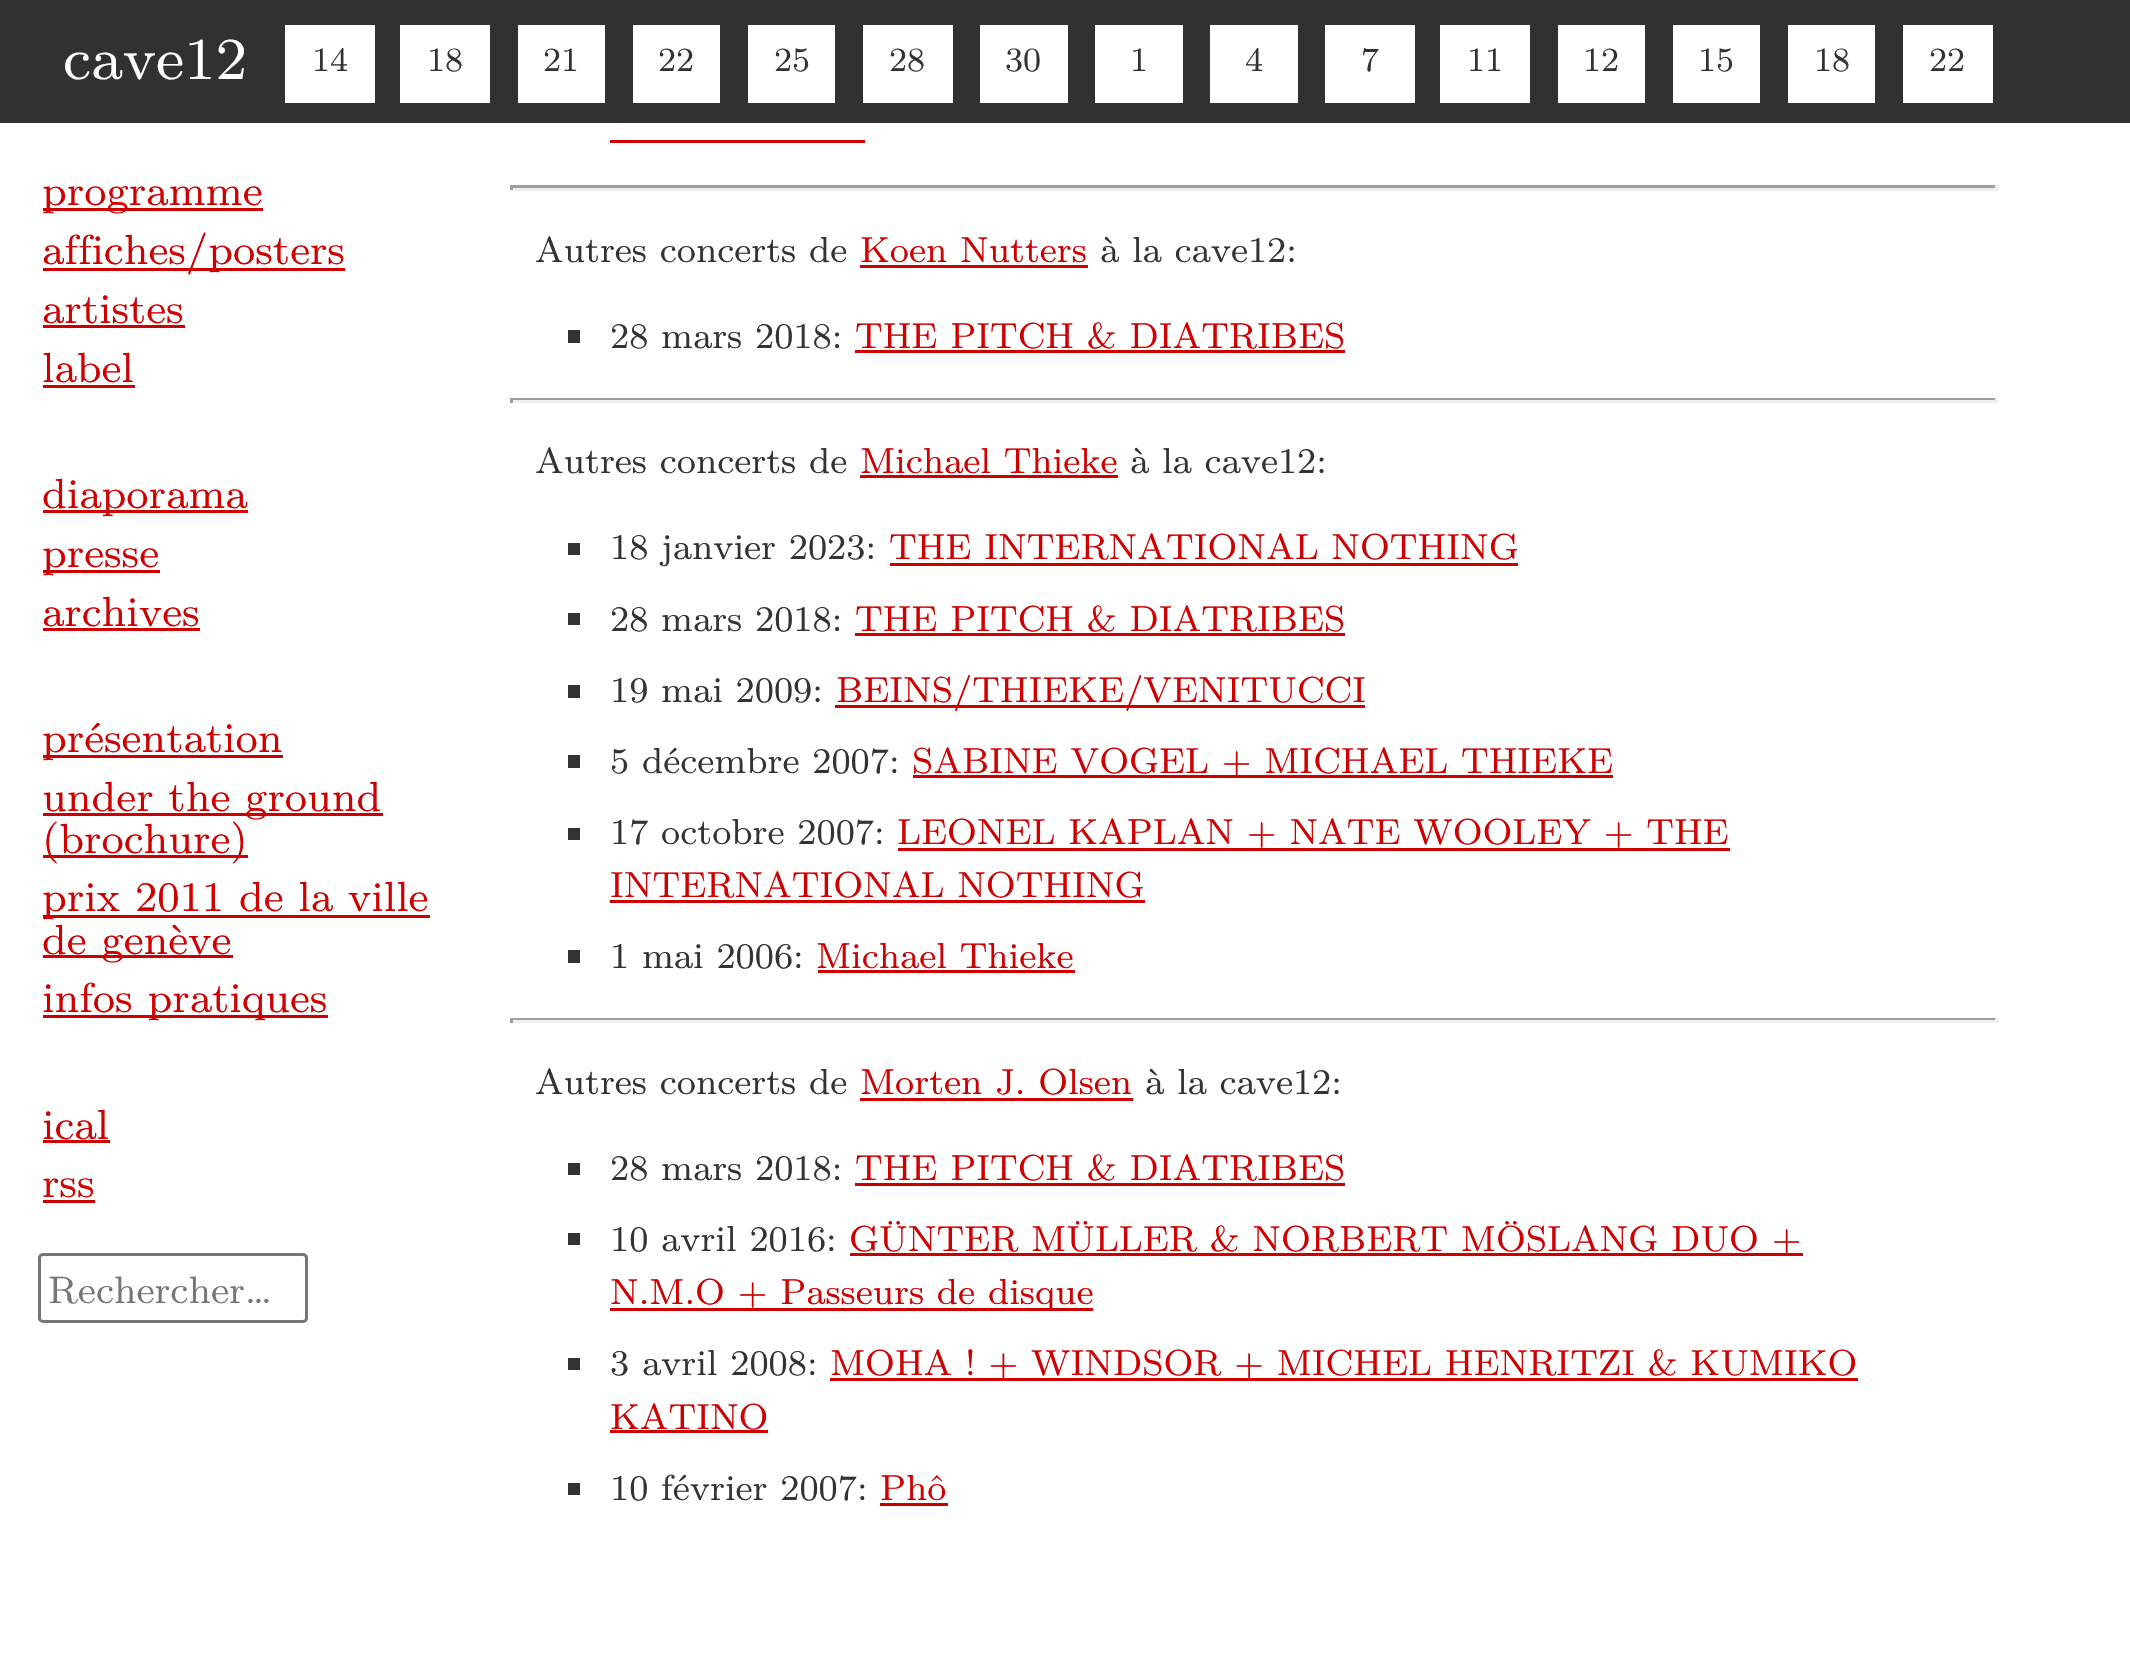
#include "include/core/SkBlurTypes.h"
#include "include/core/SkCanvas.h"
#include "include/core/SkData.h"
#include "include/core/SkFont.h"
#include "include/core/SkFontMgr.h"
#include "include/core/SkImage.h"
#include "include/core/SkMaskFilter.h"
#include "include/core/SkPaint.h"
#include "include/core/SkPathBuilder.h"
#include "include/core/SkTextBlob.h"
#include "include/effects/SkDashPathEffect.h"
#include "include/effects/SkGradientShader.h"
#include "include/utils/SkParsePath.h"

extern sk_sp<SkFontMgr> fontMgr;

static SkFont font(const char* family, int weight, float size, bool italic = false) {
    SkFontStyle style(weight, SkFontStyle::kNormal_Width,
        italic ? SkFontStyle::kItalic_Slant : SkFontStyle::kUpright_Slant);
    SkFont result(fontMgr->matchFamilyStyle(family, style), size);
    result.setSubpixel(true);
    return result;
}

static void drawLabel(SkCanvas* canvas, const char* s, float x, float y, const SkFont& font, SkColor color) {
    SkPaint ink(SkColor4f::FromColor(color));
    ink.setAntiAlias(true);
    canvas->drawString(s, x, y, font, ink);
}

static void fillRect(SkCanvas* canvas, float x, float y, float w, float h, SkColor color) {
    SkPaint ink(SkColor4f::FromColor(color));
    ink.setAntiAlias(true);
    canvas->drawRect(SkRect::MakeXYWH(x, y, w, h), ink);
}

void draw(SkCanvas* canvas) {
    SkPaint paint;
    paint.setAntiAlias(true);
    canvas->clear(0xFFFFFFFF);
    fillRect(canvas, 0, 0, 2130, 123, 0xFF313131);
    SkFont font1 = font("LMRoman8", 400, 59.5f);
    drawLabel(canvas, "cave12", 63, 79, font1, 0xFFFFFFFF);
    fillRect(canvas, 285, 25, 90, 78, 0xFFFFFFFF);
    SkFont font2 = font("LMRoman8", 400, 34);
    drawLabel(canvas, "14", 312, 71, font2, 0xFF333333);
    fillRect(canvas, 400, 25, 90, 78, 0xFFFFFFFF);
    drawLabel(canvas, "18", 427, 71, font2, 0xFF333333);
    fillRect(canvas, 518, 25, 87, 78, 0xFFFFFFFF);
    drawLabel(canvas, "21", 543, 71, font2, 0xFF333333);
    fillRect(canvas, 633, 25, 87, 78, 0xFFFFFFFF);
    drawLabel(canvas, "22", 658, 71, font2, 0xFF333333);
    fillRect(canvas, 748, 25, 87, 78, 0xFFFFFFFF);
    drawLabel(canvas, "25", 774, 71, font2, 0xFF333333);
    fillRect(canvas, 863, 25, 90, 78, 0xFFFFFFFF);
    drawLabel(canvas, "28", 889, 71, font2, 0xFF333333);
    fillRect(canvas, 980, 25, 88, 78, 0xFFFFFFFF);
    drawLabel(canvas, "30", 1005, 71, font2, 0xFF333333);
    fillRect(canvas, 1095, 25, 88, 78, 0xFFFFFFFF);
    drawLabel(canvas, "1", 1130, 71, font2, 0xFF333333);
    fillRect(canvas, 1210, 25, 88, 78, 0xFFFFFFFF);
    drawLabel(canvas, "4", 1245, 71, font2, 0xFF333333);
    fillRect(canvas, 1325, 25, 90, 78, 0xFFFFFFFF);
    drawLabel(canvas, "7", 1361, 71, font2, 0xFF333333);
    fillRect(canvas, 1440, 25, 90, 78, 0xFFFFFFFF);
    drawLabel(canvas, "11", 1467, 71, font2, 0xFF333333);
    fillRect(canvas, 1558, 25, 87, 78, 0xFFFFFFFF);
    drawLabel(canvas, "12", 1583, 71, font2, 0xFF333333);
    fillRect(canvas, 1673, 25, 87, 78, 0xFFFFFFFF);
    drawLabel(canvas, "15", 1698, 71, font2, 0xFF333333);
    fillRect(canvas, 1788, 25, 87, 78, 0xFFFFFFFF);
    drawLabel(canvas, "18", 1814, 71, font2, 0xFF333333);
    fillRect(canvas, 1903, 25, 90, 78, 0xFFFFFFFF);
    drawLabel(canvas, "22", 1929, 71, font2, 0xFF333333);
    fillRect(canvas, 43, 208, 220, 3, 0xFFCE0000);
    SkFont font3 = font("LMRoman8", 400, 42);
    drawLabel(canvas, "programme", 42, 205, font3, 0xFFCE0000);
    fillRect(canvas, 43, 268, 302, 3, 0xFFCE0000);
    drawLabel(canvas, "affiches/posters", 42, 264, font3, 0xFFCE0000);
    drawLabel(canvas, "artistes", 42, 323, font3, 0xFFCE0000);
    fillRect(canvas, 43, 325, 142, 3, 0xFFCE0000);
    drawLabel(canvas, "label", 42, 382, font3, 0xFFCE0000);
    fillRect(canvas, 43, 385, 92, 3, 0xFFCE0000);
    fillRect(canvas, 43, 510, 205, 3, 0xFFCE0000);
    drawLabel(canvas, "diaporama", 42, 508, font3, 0xFFCE0000);
    fillRect(canvas, 43, 570, 117, 3, 0xFFCE0000);
    drawLabel(canvas, "presse", 42, 567, font3, 0xFFCE0000);
    drawLabel(canvas, "archives", 42, 626, font3, 0xFFCE0000);
    fillRect(canvas, 43, 628, 157, 3, 0xFFCE0000);
    fillRect(canvas, 43, 755, 240, 3, 0xFFCE0000);
    drawLabel(canvas, "présentation", 42, 752, font3, 0xFFCE0000);
    fillRect(canvas, 43, 813, 340, 3, 0xFFCE0000);
    drawLabel(canvas, "under the ground", 42, 811, font3, 0xFFCE0000);
    fillRect(canvas, 43, 855, 205, 3, 0xFFCE0000);
    drawLabel(canvas, "(brochure)", 42, 853, font3, 0xFFCE0000);
    fillRect(canvas, 43, 915, 387, 3, 0xFFCE0000);
    drawLabel(canvas, "prix 2011 de la ville", 42, 911, font3, 0xFFCE0000);
    fillRect(canvas, 43, 955, 190, 3, 0xFFCE0000);
    drawLabel(canvas, "de genève", 42, 954, font3, 0xFFCE0000);
    fillRect(canvas, 43, 1015, 285, 3, 0xFFCE0000);
    drawLabel(canvas, "infos pratiques", 42, 1012, font3, 0xFFCE0000);
    drawLabel(canvas, "ical", 42, 1139, font3, 0xFFCE0000);
    fillRect(canvas, 43, 1140, 67, 3, 0xFFCE0000);
    drawLabel(canvas, "rss", 42, 1197, font3, 0xFFCE0000);
    fillRect(canvas, 43, 1200, 52, 3, 0xFFCE0000);
    paint.setStroke(true);
    paint.setStrokeWidth(3);
    paint.setColor(0xFF767676);
    canvas->drawRoundRect(SkRect::MakeXYWH(39.5f, 1254.5f, 267, 67), 3.5f, 3.5f, paint);
    SkFont font4 = font("LMRoman8", 400, 38.25f);
    drawLabel(canvas, "Rechercher…", 48, 1303, font4, 0xFF757575);
    fillRect(canvas, 610, 140, 255, 3, 0xFFCE0000);
    fillRect(canvas, 510, 185, 1488, 3, 0xFF9F9F9F);
    fillRect(canvas, 1995, 185, 3, 5, 0xFFEEEEEE);
    fillRect(canvas, 510, 188, 1488, 3, 0xFFEEEEEE);
    fillRect(canvas, 510, 185, 3, 5, 0xFF9F9F9F);
    SkFont font5 = font("LMRoman8", 400, 36.1f);
    drawLabel(canvas, "Autres concerts de", 535, 262, font5, 0xFF333333);
    drawLabel(canvas, "Koen Nutters", 860, 262, font5, 0xFFCE0000);
    fillRect(canvas, 860, 265, 228, 3, 0xFFCE0000);
    drawLabel(canvas, "à la cave12:", 1100, 262, font5, 0xFF333333);
    fillRect(canvas, 568, 330, 12, 13, 0xFF333333);
    drawLabel(canvas, "28 mars 2018:", 610, 348, font5, 0xFF333333);
    drawLabel(canvas, "THE PITCH & DIATRIBES", 855, 348, font5, 0xFFCE0000);
    fillRect(canvas, 855, 350, 490, 3, 0xFFCE0000);
    fillRect(canvas, 510, 398, 1488, 2, 0xFF9F9F9F);
    fillRect(canvas, 1995, 398, 3, 5, 0xFFEEEEEE);
    fillRect(canvas, 510, 400, 1488, 3, 0xFFEEEEEE);
    fillRect(canvas, 510, 398, 3, 5, 0xFF9F9F9F);
    drawLabel(canvas, "Autres concerts de", 535, 473, font5, 0xFF333333);
    drawLabel(canvas, "Michael Thieke", 860, 473, font5, 0xFFCE0000);
    fillRect(canvas, 860, 475, 258, 3, 0xFFCE0000);
    drawLabel(canvas, "à la cave12:", 1130, 473, font5, 0xFF333333);
    fillRect(canvas, 568, 543, 12, 12, 0xFF333333);
    drawLabel(canvas, "18 janvier 2023:", 610, 559, font5, 0xFF333333);
    drawLabel(canvas, "THE INTERNATIONAL NOTHING", 889, 559, font5, 0xFFCE0000);
    fillRect(canvas, 890, 563, 628, 3, 0xFFCE0000);
    fillRect(canvas, 568, 613, 12, 12, 0xFF333333);
    drawLabel(canvas, "28 mars 2018:", 610, 631, font5, 0xFF333333);
    drawLabel(canvas, "THE PITCH & DIATRIBES", 855, 631, font5, 0xFFCE0000);
    fillRect(canvas, 855, 633, 490, 3, 0xFFCE0000);
    fillRect(canvas, 568, 685, 12, 13, 0xFF333333);
    drawLabel(canvas, "19 mai 2009:", 610, 702, font5, 0xFF333333);
    fillRect(canvas, 835, 705, 530, 3, 0xFFCE0000);
    drawLabel(canvas, "BEINS/THIEKE/VENITUCCI", 836, 702, font5, 0xFFCE0000);
    fillRect(canvas, 568, 755, 12, 13, 0xFF333333);
    drawLabel(canvas, "5 décembre 2007:", 610, 773, font5, 0xFF333333);
    fillRect(canvas, 913, 775, 700, 3, 0xFFCE0000);
    drawLabel(canvas, "SABINE VOGEL + MICHAEL THIEKE", 912, 773, font5, 0xFFCE0000);
    fillRect(canvas, 568, 828, 12, 12, 0xFF333333);
    drawLabel(canvas, "17 octobre 2007:", 610, 844, font5, 0xFF333333);
    drawLabel(canvas, "LEONEL KAPLAN + NATE WOOLEY + THE", 897, 844, font5, 0xFFCE0000);
    fillRect(canvas, 898, 848, 832, 3, 0xFFCE0000);
    drawLabel(canvas, "INTERNATIONAL NOTHING", 610, 897, font5, 0xFFCE0000);
    fillRect(canvas, 610, 900, 535, 3, 0xFFCE0000);
    fillRect(canvas, 568, 950, 12, 13, 0xFF333333);
    drawLabel(canvas, "1 mai 2006:", 610, 968, font5, 0xFF333333);
    drawLabel(canvas, "Michael Thieke", 816, 968, font5, 0xFFCE0000);
    fillRect(canvas, 818, 970, 257, 3, 0xFFCE0000);
    fillRect(canvas, 510, 1018, 1488, 2, 0xFF9F9F9F);
    fillRect(canvas, 1995, 1018, 3, 5, 0xFFEEEEEE);
    fillRect(canvas, 510, 1020, 1488, 3, 0xFFEEEEEE);
    fillRect(canvas, 510, 1018, 3, 5, 0xFF9F9F9F);
    drawLabel(canvas, "Autres concerts de", 535, 1094, font5, 0xFF333333);
    drawLabel(canvas, "Morten J. Olsen", 860, 1094, font5, 0xFFCE0000);
    fillRect(canvas, 860, 1098, 273, 3, 0xFFCE0000);
    drawLabel(canvas, "à la cave12:", 1145, 1094, font5, 0xFF333333);
    fillRect(canvas, 568, 1163, 12, 12, 0xFF333333);
    drawLabel(canvas, "28 mars 2018:", 610, 1180, font5, 0xFF333333);
    drawLabel(canvas, "THE PITCH & DIATRIBES", 855, 1180, font5, 0xFFCE0000);
    fillRect(canvas, 855, 1183, 490, 3, 0xFFCE0000);
    fillRect(canvas, 568, 1233, 12, 12, 0xFF333333);
    drawLabel(canvas, "10 avril 2016:", 610, 1251, font5, 0xFF333333);
    fillRect(canvas, 850, 1253, 953, 3, 0xFFCE0000);
    drawLabel(canvas, "GÜNTER MÜLLER & NORBERT MÖSLANG DUO +", 849, 1251, font5, 0xFFCE0000);
    fillRect(canvas, 610, 1308, 483, 3, 0xFFCE0000);
    drawLabel(canvas, "N.M.O + Passeurs de disque", 610, 1304, font5, 0xFFCE0000);
    fillRect(canvas, 568, 1358, 12, 12, 0xFF333333);
    drawLabel(canvas, "3 avril 2008:", 610, 1375, font5, 0xFF333333);
    fillRect(canvas, 830, 1378, 1028, 3, 0xFFCE0000);
    drawLabel(canvas, "MOHA ! + WINDSOR + MICHEL HENRITZI & KUMIKO", 830, 1375, font5, 0xFFCE0000);
    drawLabel(canvas, "KATINO", 610, 1429, font5, 0xFFCE0000);
    fillRect(canvas, 610, 1430, 158, 3, 0xFFCE0000);
    fillRect(canvas, 568, 1483, 12, 12, 0xFF333333);
    drawLabel(canvas, "10 février 2007:", 610, 1500, font5, 0xFF333333);
    drawLabel(canvas, "Phô", 880, 1500, font5, 0xFFCE0000);
    fillRect(canvas, 880, 1503, 68, 3, 0xFFCE0000);
}
